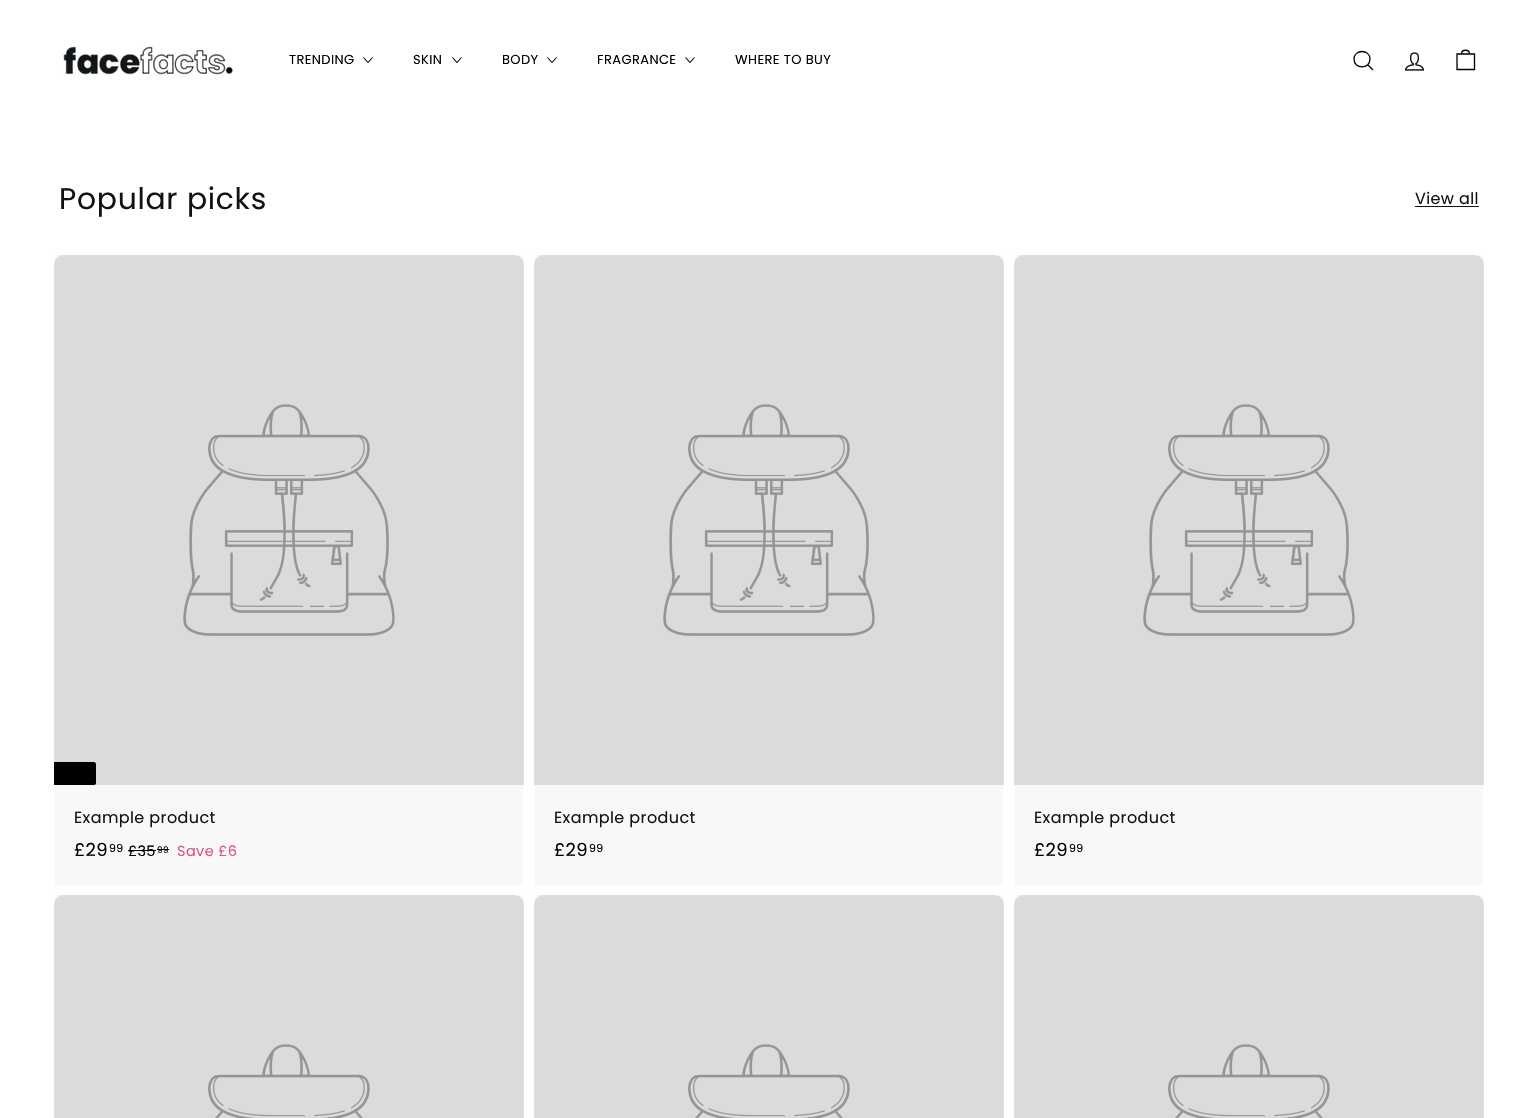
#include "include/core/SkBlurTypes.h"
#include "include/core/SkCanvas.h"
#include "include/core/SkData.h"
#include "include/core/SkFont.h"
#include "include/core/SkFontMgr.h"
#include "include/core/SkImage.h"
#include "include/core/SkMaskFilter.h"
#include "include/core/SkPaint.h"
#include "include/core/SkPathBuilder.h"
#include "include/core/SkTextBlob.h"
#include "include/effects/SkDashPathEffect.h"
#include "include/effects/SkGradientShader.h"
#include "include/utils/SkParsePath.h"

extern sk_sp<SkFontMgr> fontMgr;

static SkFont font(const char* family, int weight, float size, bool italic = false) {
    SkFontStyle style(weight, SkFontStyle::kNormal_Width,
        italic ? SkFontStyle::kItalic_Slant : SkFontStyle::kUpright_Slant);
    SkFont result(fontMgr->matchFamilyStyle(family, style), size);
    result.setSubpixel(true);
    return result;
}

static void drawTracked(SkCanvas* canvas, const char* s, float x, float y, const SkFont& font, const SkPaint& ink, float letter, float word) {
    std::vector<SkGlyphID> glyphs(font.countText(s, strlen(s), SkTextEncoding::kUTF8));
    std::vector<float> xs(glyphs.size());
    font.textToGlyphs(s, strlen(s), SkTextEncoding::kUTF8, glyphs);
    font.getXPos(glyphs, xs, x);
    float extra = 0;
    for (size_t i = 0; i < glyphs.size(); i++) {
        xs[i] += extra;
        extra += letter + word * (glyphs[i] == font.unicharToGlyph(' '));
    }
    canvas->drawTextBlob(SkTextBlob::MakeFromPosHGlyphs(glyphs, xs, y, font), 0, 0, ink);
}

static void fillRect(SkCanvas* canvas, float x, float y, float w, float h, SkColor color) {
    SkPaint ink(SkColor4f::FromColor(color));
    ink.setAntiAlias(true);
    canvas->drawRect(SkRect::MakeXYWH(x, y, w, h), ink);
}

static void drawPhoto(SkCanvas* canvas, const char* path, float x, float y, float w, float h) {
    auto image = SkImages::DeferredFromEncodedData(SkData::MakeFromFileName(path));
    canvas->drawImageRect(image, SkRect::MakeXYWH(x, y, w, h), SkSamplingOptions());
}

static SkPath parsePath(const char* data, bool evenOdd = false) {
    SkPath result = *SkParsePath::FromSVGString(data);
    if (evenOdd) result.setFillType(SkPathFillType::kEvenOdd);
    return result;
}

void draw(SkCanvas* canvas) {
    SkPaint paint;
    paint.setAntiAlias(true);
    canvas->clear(0xFFFFFFFF);
    drawPhoto(canvas, "assets/img1.png", 63, 46, 170, 29);
    SkFont font1 = font("Poppins", 400, 13);
    paint.setColor(0xFF000000);
    drawTracked(canvas, "TRENDING", 289, 64, font1, paint, 0.4f, 0);
    paint.setStroke(true);
    paint.setStrokeWidth(1.1f);
    canvas->drawPath(parsePath("M363.5 57.5L368 62.5L372.5 57.5"), paint);
    paint.setStroke(false);
    drawTracked(canvas, "SKIN", 413, 64, font1, paint, 0.4f, 0);
    paint.setStroke(true);
    canvas->drawPath(parsePath("M452.5 57.5L457 62.5L461.5 57.5"), paint);
    paint.setStroke(false);
    drawTracked(canvas, "BODY", 502, 64, font1, paint, 0.4f, 0);
    paint.setStroke(true);
    canvas->drawPath(parsePath("M547.5 57.5L552 62.5L556.5 57.5"), paint);
    paint.setStroke(false);
    drawTracked(canvas, "FRAGRANCE", 597, 64, font1, paint, 0.4f, 0);
    paint.setStroke(true);
    canvas->drawPath(parsePath("M685.5 57.5L690 62.5L694.5 57.5"), paint);
    paint.setStroke(false);
    drawTracked(canvas, "WHERE TO BUY", 735, 64, font1, paint, 0.4f, 0);
    paint.setStroke(true);
    paint.setStrokeWidth(1.3f);
    canvas->drawPath(parsePath("M1370 59C1370 69.5 1354 69.5 1354 59C1354 49 1370 49 1370 59M1373 70L1367.5 64.5"), paint);
    drawPhoto(canvas, "assets/img2.png", 1405, 52, 19, 19);
    canvas->drawPath(parsePath("M1461.5 54C1461.5 49 1469.5 49 1469.5 54M1457 54H1474.5V69.5H1457Z"), paint);
    SkFont font2 = font("Poppins", 400, 29.75f);
    paint.setStroke(false);
    paint.setColor(0xFF111212);
    drawTracked(canvas, "Popular picks", 59, 209, font2, paint, 0.75f, 0);
    SkFont font3 = font("Poppins", 400, 16);
    drawTracked(canvas, "View all", 1415, 204, font3, paint, 0.4f, 0);
    fillRect(canvas, 1415, 206, 64, 1, 0xFF111212);
    paint.setColor(0xFFE1E1E1);
    canvas->drawPath(parsePath("M64 255H514C519.5 255 524 259.5 524 265V785H54V265C54 259.5 58.5 255 64 255Z"), paint);
    drawPhoto(canvas, "assets/img3.png", 183, 404, 212, 232);
    fillRect(canvas, 128, 850, 28, 1, 0xFF000000);
    fillRect(canvas, 157, 849, 12, 1, 0xFF000000);
    fillRect(canvas, 55, 255, 468, 630, 0x08111212);
    paint.setColor(0xFF000000);
    canvas->drawPath(parsePath("M54 762H94C95 762 96 763 96 764V783C96 784 95 785 94 785H54Z"), paint);
    paint.setColor(0xFF111212);
    drawTracked(canvas, "Example product", 74, 823, font3, paint, 0.4f, 0);
    SkFont font4 = font("Poppins", 400, 18);
    paint.setColor(0xFF000000);
    drawTracked(canvas, "£29", 74, 856, font4, paint, 0.4f, 0);
    SkFont font5 = font("Poppins", 400, 11);
    drawTracked(canvas, "99", 109, 852, font5, paint, 0.4f, 0);
    SkFont font6 = font("Poppins", 400, 14.5f);
    drawTracked(canvas, "£35", 128, 856, font6, paint, 0.4f, 0);
    SkFont font7 = font("Poppins", 400, 9);
    drawTracked(canvas, "99", 157, 853, font7, paint, 0.4f, 0);
    paint.setColor(0xFFDA558A);
    drawTracked(canvas, "Save £6", 177, 856, font6, paint, 0.4f, 0);
    paint.setColor(0xFFE1E1E1);
    canvas->drawPath(parsePath("M544 255H994C999.5 255 1004 259.5 1004 265V785H534V265C534 259.5 538.5 255 544 255Z"), paint);
    drawPhoto(canvas, "assets/img3.png", 663, 404, 212, 232);
    fillRect(canvas, 535, 255, 468, 630, 0x08111212);
    paint.setColor(0xFF111212);
    drawTracked(canvas, "Example product", 554, 823, font3, paint, 0.4f, 0);
    paint.setColor(0xFF000000);
    drawTracked(canvas, "£29", 554, 856, font4, paint, 0.4f, 0);
    drawTracked(canvas, "99", 589, 852, font5, paint, 0.4f, 0);
    paint.setColor(0xFFE1E1E1);
    canvas->drawPath(parsePath("M1024 255H1474C1479.5 255 1484 259.5 1484 265V785H1014V265C1014 259.5 1018.5 255 1024 255Z"), paint);
    drawPhoto(canvas, "assets/img3.png", 1143, 404, 212, 232);
    fillRect(canvas, 1015, 255, 468, 630, 0x08111212);
    paint.setColor(0xFF111212);
    drawTracked(canvas, "Example product", 1034, 823, font3, paint, 0.4f, 0);
    paint.setColor(0xFF000000);
    drawTracked(canvas, "£29", 1034, 856, font4, paint, 0.4f, 0);
    drawTracked(canvas, "99", 1069, 852, font5, paint, 0.4f, 0);
    paint.setColor(0xFFE1E1E1);
    canvas->drawPath(parsePath("M64 895H514C519.5 895 524 899.5 524 905V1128H54V905C54 899.5 58.5 895 64 895Z"), paint);
    drawPhoto(canvas, "assets/img4.png", 208, 1044, 162, 74);
    fillRect(canvas, 55, 895, 468, 223, 0x08111212);
    canvas->drawPath(parsePath("M544 895H994C999.5 895 1004 899.5 1004 905V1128H534V905C534 899.5 538.5 895 544 895Z"), paint);
    drawPhoto(canvas, "assets/img4.png", 688, 1044, 162, 74);
    fillRect(canvas, 535, 895, 468, 223, 0x08111212);
    canvas->drawPath(parsePath("M1024 895H1474C1479.5 895 1484 899.5 1484 905V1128H1014V905C1014 899.5 1018.5 895 1024 895Z"), paint);
    drawPhoto(canvas, "assets/img4.png", 1168, 1044, 162, 74);
    fillRect(canvas, 1015, 895, 468, 223, 0x08111212);
}
